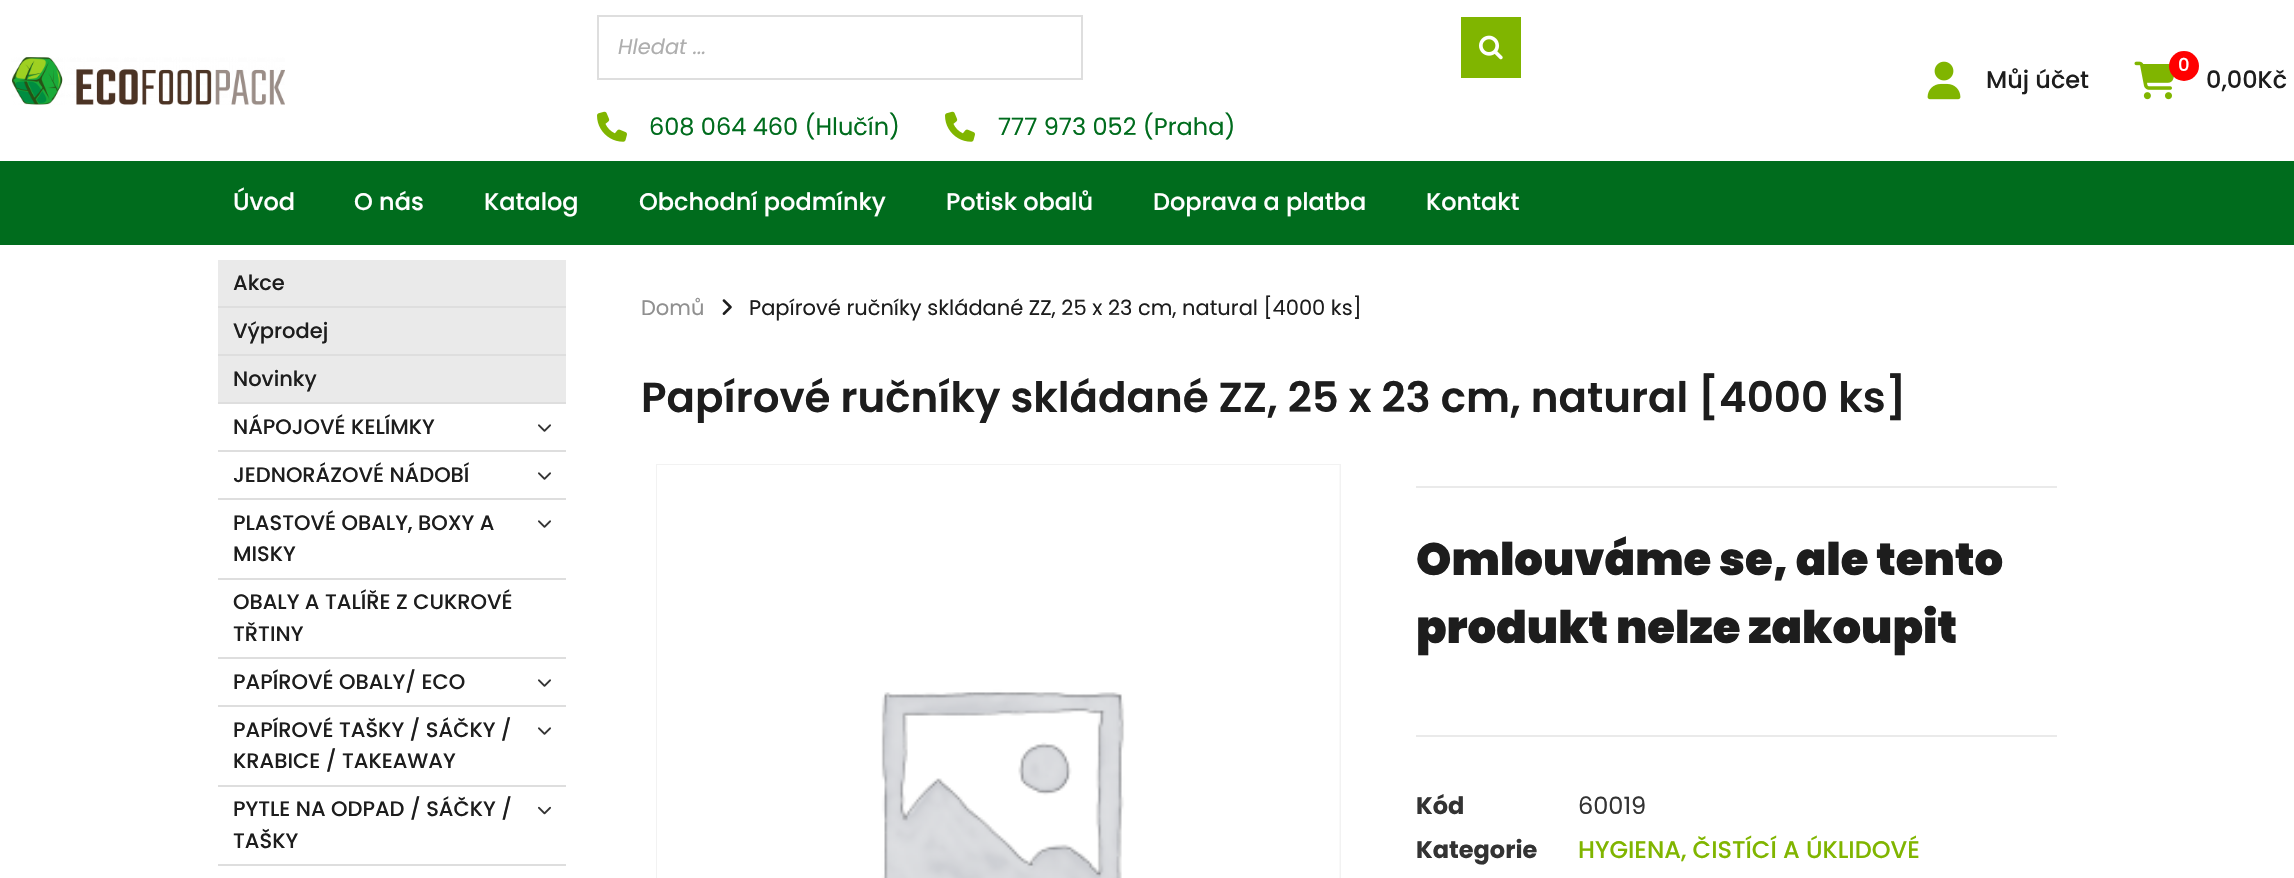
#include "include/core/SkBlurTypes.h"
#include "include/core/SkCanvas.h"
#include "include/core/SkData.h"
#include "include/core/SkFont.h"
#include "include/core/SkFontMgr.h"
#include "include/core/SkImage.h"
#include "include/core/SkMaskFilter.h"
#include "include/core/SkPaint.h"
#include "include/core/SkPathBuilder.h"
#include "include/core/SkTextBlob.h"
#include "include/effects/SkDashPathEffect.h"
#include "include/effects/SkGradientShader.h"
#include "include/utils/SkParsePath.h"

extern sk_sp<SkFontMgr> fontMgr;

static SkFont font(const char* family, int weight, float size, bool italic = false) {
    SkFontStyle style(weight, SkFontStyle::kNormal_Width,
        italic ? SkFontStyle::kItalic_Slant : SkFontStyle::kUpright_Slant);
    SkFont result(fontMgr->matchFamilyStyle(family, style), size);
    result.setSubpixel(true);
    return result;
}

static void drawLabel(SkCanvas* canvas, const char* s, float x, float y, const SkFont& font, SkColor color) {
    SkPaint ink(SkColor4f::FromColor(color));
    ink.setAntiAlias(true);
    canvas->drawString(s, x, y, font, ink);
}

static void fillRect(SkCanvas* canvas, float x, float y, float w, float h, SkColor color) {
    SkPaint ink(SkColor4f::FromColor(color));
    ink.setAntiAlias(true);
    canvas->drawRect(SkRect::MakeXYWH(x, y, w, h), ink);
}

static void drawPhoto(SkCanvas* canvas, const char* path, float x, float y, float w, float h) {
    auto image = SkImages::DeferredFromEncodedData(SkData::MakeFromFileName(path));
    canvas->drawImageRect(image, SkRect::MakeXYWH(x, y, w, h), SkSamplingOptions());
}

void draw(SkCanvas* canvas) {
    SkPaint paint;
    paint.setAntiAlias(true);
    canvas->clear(0xFFFFFFFF);
    drawPhoto(canvas, "assets/img1.png", 11, 57, 274, 48);
    paint.setStroke(true);
    paint.setStrokeWidth(2);
    paint.setColor(0xFFDEDEDE);
    canvas->drawRect(SkRect::MakeXYWH(598, 16, 484, 63), paint);
    SkFont font1 = font("Poppins", 400, 21, true);
    drawLabel(canvas, "Hledat ...", 618, 54, font1, 0xFFAEAEAE);
    fillRect(canvas, 1461, 17, 60, 61, 0xFF80B500);
    drawPhoto(canvas, "assets/img2.png", 1479, 35, 24, 25);
    drawPhoto(canvas, "assets/img3.png", 597, 111, 30, 31);
    SkFont font2 = font("Poppins", 400, 24);
    drawLabel(canvas, "608 064 460 (Hlučín)", 649, 135, font2, 0xFF006C1D);
    drawPhoto(canvas, "assets/img3.png", 945, 111, 30, 31);
    drawLabel(canvas, "777 973 052 (Praha)", 998, 135, font2, 0xFF006C1D);
    drawPhoto(canvas, "assets/img4.png", 1927, 61, 34, 39);
    SkFont font3 = font("Poppins", 500, 24);
    drawLabel(canvas, "Můj účet", 1986, 88, font3, 0xFF1D1D1D);
    drawPhoto(canvas, "assets/img5.png", 2134, 61, 40, 39);
    paint.setStroke(false);
    paint.setColor(0xFFFF0000);
    canvas->drawCircle(2184, 66, 15, paint);
    SkFont font4 = font("Poppins", 500, 18);
    drawLabel(canvas, "0", 2178, 71, font4, 0xFFFFFFFF);
    drawLabel(canvas, "0,00Kč", 2206, 88, font3, 0xFF1D1D1D);
    fillRect(canvas, 0, 161, 2294, 84, 0xFF006C1D);
    drawLabel(canvas, "Úvod", 233, 210, font3, 0xFFFFFFFF);
    drawLabel(canvas, "O nás", 354, 210, font3, 0xFFFFFFFF);
    drawLabel(canvas, "Katalog", 484, 210, font3, 0xFFFFFFFF);
    drawLabel(canvas, "Obchodní podmínky", 639, 210, font3, 0xFFFFFFFF);
    drawLabel(canvas, "Potisk obalů", 946, 210, font3, 0xFFFFFFFF);
    drawLabel(canvas, "Doprava a platba", 1153, 210, font3, 0xFFFFFFFF);
    drawLabel(canvas, "Kontakt", 1426, 210, font3, 0xFFFFFFFF);
    fillRect(canvas, 218, 260, 348, 46, 0xFFEAEAEA);
    fillRect(canvas, 218, 306, 348, 2, 0xFFDEDEDE);
    SkFont font5 = font("Poppins", 500, 21);
    drawLabel(canvas, "Akce", 233, 290, font5, 0xFF1D1D1D);
    fillRect(canvas, 218, 308, 348, 46, 0xFFEAEAEA);
    fillRect(canvas, 218, 354, 348, 2, 0xFFDEDEDE);
    drawLabel(canvas, "Výprodej", 233, 338, font5, 0xFF1D1D1D);
    fillRect(canvas, 218, 356, 348, 46, 0xFFEAEAEA);
    fillRect(canvas, 218, 402, 348, 2, 0xFFDEDEDE);
    drawLabel(canvas, "Novinky", 233, 386, font5, 0xFF1D1D1D);
    fillRect(canvas, 218, 450, 348, 2, 0xFFDEDEDE);
    drawLabel(canvas, "NÁPOJOVÉ KELÍMKY", 233, 434, font5, 0xFF1D1D1D);
    drawPhoto(canvas, "assets/img6.png", 538, 424, 13, 8);
    fillRect(canvas, 218, 498, 348, 2, 0xFFDEDEDE);
    drawLabel(canvas, "JEDNORÁZOVÉ NÁDOBÍ", 233, 482, font5, 0xFF1D1D1D);
    drawPhoto(canvas, "assets/img6.png", 538, 472, 13, 8);
    fillRect(canvas, 218, 578, 348, 2, 0xFFDEDEDE);
    drawLabel(canvas, "PLASTOVÉ OBALY, BOXY A", 233, 530, font5, 0xFF1D1D1D);
    drawLabel(canvas, "MISKY", 233, 561, font5, 0xFF1D1D1D);
    drawPhoto(canvas, "assets/img6.png", 538, 520, 13, 8);
    fillRect(canvas, 218, 657, 348, 2, 0xFFDEDEDE);
    drawLabel(canvas, "OBALY A TALÍŘE Z CUKROVÉ", 233, 609, font5, 0xFF1D1D1D);
    drawLabel(canvas, "TŘTINY", 233, 641, font5, 0xFF1D1D1D);
    fillRect(canvas, 218, 705, 348, 2, 0xFFDEDEDE);
    drawLabel(canvas, "PAPÍROVÉ OBALY/ ECO", 233, 689, font5, 0xFF1D1D1D);
    drawPhoto(canvas, "assets/img6.png", 538, 679, 13, 8);
    fillRect(canvas, 218, 785, 348, 2, 0xFFDEDEDE);
    drawLabel(canvas, "PAPÍROVÉ TAŠKY / SÁČKY /", 233, 737, font5, 0xFF1D1D1D);
    drawLabel(canvas, "KRABICE / TAKEAWAY", 233, 768, font5, 0xFF1D1D1D);
    drawPhoto(canvas, "assets/img6.png", 538, 727, 13, 8);
    fillRect(canvas, 218, 864, 348, 2, 0xFFDEDEDE);
    drawLabel(canvas, "PYTLE NA ODPAD / SÁČKY /", 233, 816, font5, 0xFF1D1D1D);
    drawLabel(canvas, "TAŠKY", 233, 848, font5, 0xFF1D1D1D);
    drawPhoto(canvas, "assets/img7.png", 538, 806, 13, 9);
    SkFont font6 = font("Poppins", 400, 21);
    drawLabel(canvas, "Domů", 641, 315, font6, 0xFF909090);
    drawPhoto(canvas, "assets/img8.png", 722, 299, 10, 16);
    drawLabel(canvas, "Papírové ručníky skládané ZZ, 25 x 23 cm, natural [4000 ks]", 749, 315, font6, 0xFF1D1D1D);
    SkFont font7 = font("Poppins", 600, 42);
    drawLabel(canvas, "Papírové ručníky skládané ZZ, 25 x 23 cm, natural [4000 ks]", 641, 412, font7, 0xFF1D1D1D);
    paint.setStroke(true);
    paint.setColor(0xFFF2F2F2);
    canvas->drawRect(SkRect::MakeXYWH(657, 465, 683, 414), paint);
    drawPhoto(canvas, "assets/img9.png", 657, 465, 683, 413);
    fillRect(canvas, 1416, 486, 641, 2, 0xFFEAEAEA);
    SkFont font8 = font("Poppins", 900, 45);
    drawLabel(canvas, "Omlouváme se, ale tento", 1416, 575, font8, 0xFF1D1D1D);
    drawLabel(canvas, "produkt nelze zakoupit", 1416, 643, font8, 0xFF1D1D1D);
    fillRect(canvas, 1416, 735, 641, 2, 0xFFEAEAEA);
    SkFont font9 = font("Poppins", 700, 24);
    drawLabel(canvas, "Kód", 1416, 814, font9, 0xFF333333);
    drawLabel(canvas, "60019", 1578, 814, font2, 0xFF333333);
    drawLabel(canvas, "Kategorie", 1416, 858, font9, 0xFF333333);
    drawLabel(canvas, "HYGIENA, ČISTÍCÍ A ÚKLIDOVÉ", 1578, 858, font3, 0xFF80B500);
}
